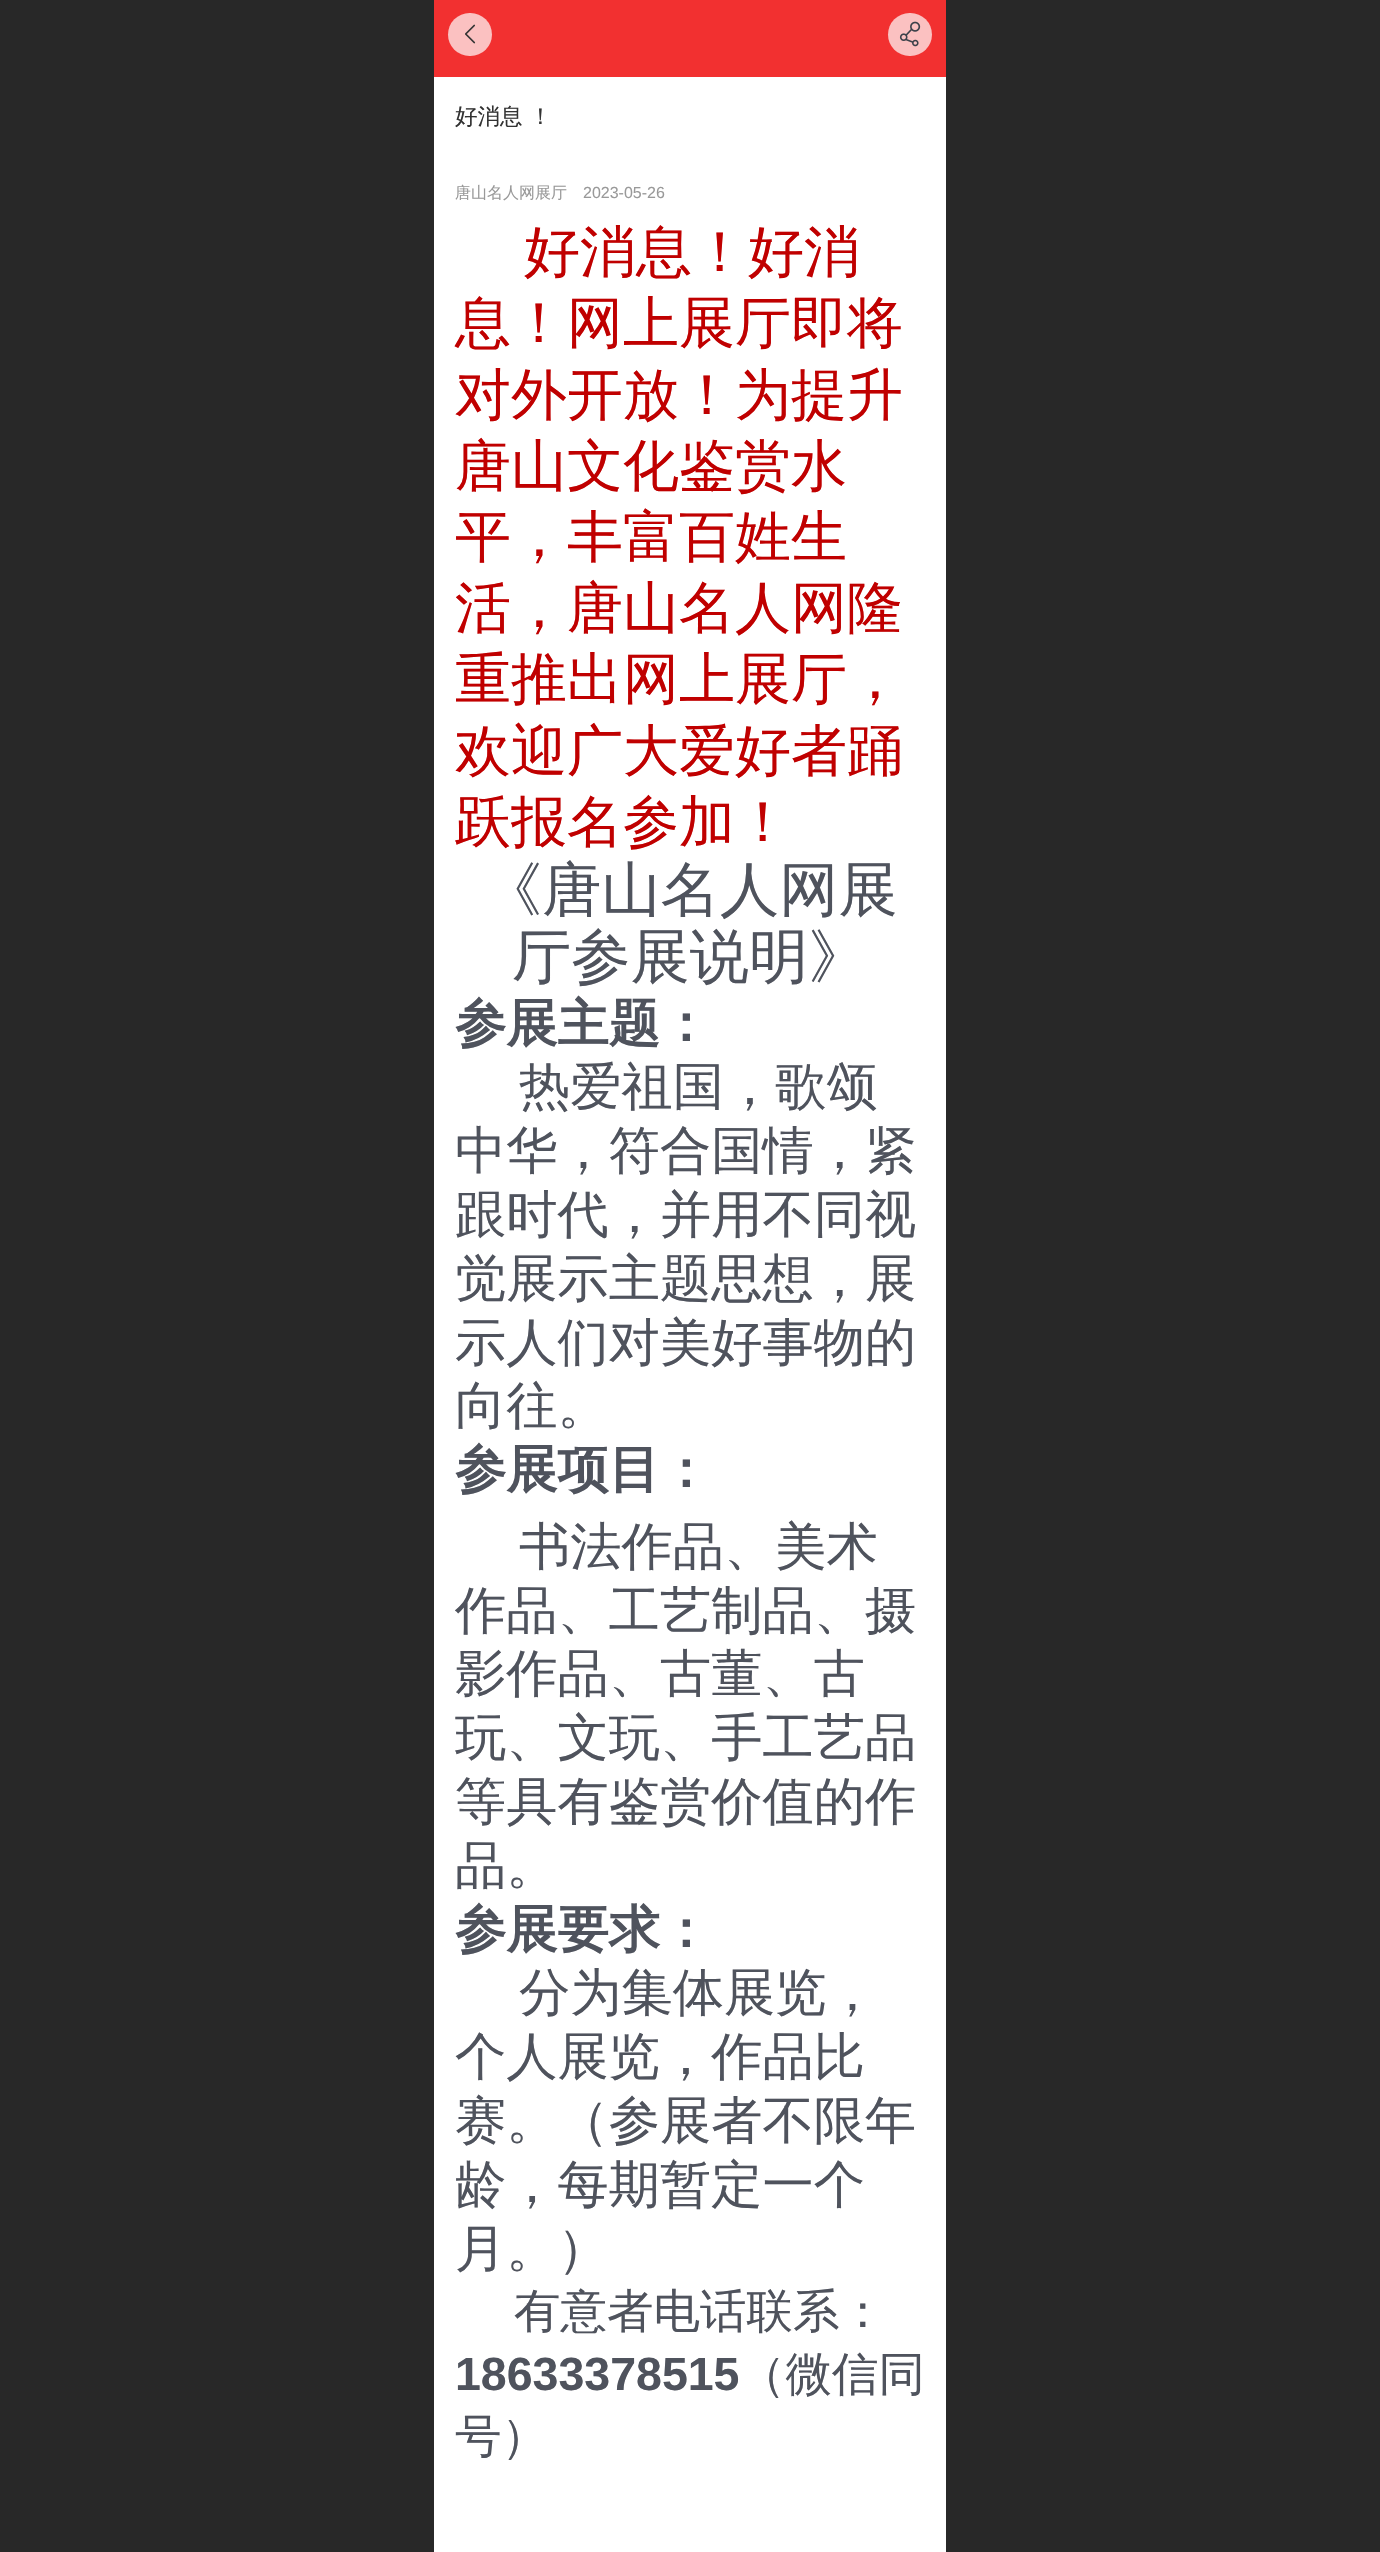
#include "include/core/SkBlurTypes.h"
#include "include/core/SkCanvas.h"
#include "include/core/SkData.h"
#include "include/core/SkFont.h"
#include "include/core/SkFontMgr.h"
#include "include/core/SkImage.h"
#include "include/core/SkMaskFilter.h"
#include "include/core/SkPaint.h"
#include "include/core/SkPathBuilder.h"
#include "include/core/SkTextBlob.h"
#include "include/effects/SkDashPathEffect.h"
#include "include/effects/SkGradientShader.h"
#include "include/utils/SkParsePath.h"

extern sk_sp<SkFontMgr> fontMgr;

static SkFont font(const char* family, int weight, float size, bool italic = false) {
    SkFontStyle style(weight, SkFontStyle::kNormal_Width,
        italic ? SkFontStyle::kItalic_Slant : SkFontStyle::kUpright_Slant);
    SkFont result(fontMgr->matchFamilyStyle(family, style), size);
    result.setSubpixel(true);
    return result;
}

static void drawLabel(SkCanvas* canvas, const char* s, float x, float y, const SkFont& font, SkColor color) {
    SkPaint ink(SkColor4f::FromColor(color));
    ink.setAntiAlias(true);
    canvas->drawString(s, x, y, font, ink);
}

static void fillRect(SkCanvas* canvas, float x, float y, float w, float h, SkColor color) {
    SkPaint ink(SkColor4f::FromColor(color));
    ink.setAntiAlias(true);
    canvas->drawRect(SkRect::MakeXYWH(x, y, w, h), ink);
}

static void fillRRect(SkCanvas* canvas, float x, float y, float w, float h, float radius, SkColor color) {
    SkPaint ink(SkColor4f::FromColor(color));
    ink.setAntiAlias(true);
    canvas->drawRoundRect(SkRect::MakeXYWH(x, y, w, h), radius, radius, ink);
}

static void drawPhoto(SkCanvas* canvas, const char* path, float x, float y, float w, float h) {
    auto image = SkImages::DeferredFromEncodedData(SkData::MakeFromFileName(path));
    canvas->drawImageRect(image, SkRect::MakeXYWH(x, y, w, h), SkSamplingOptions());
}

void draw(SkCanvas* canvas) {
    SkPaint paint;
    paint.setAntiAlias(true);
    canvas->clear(0xFFFFFFFF);
    fillRect(canvas, 0, 0, 434, 2552, 0xFF282828);
    fillRect(canvas, 434, 0, 512, 77, 0xFFF23030);
    fillRRect(canvas, 448, 13, 44, 43, 21.5f, 0xFFFBC1C1);
    drawPhoto(canvas, "assets/img1.png", 465, 24, 11, 20);
    fillRRect(canvas, 888, 13, 44, 43, 21.5f, 0xFFFBC1C1);
    drawPhoto(canvas, "assets/img2.png", 899, 21, 22, 26);
    SkFont font1 = font("WenQuanYi Zen Hei", 500, 22.5f);
    drawLabel(canvas, "好消息 ！", 455, 124, font1, 0xFF333333);
    SkFont font2 = font("WenQuanYi Zen Hei", 500, 16);
    drawLabel(canvas, "唐山名人网展厅", 455, 198, font2, 0xFF999999);
    SkFont font3 = font("Liberation Sans", 400, 16);
    drawLabel(canvas, "2023-05-26", 583, 198, font3, 0xFF999999);
    SkFont font4 = font("WenQuanYi Zen Hei", 500, 56);
    drawLabel(canvas, "好消息！好消", 524, 271, font4, 0xFFC00000);
    drawLabel(canvas, "息！网上展厅即将", 455, 342, font4, 0xFFC00000);
    drawLabel(canvas, "对外开放！为提升", 455, 414, font4, 0xFFC00000);
    drawLabel(canvas, "唐山文化鉴赏水", 455, 485, font4, 0xFFC00000);
    drawLabel(canvas, "平，丰富百姓生", 455, 556, font4, 0xFFC00000);
    drawLabel(canvas, "活，唐山名人网隆", 455, 627, font4, 0xFFC00000);
    drawLabel(canvas, "重推出网上展厅，", 455, 698, font4, 0xFFC00000);
    drawLabel(canvas, "欢迎广大爱好者踊", 455, 770, font4, 0xFFC00000);
    drawLabel(canvas, "跃报名参加！", 455, 841, font4, 0xFFC00000);
    SkFont font5 = font("WenQuanYi Zen Hei", 500, 59.25f);
    drawLabel(canvas, "《唐山名人网展", 483, 910, font5, 0xFF4F535D);
    drawLabel(canvas, "厅参展说明》", 512, 977, font5, 0xFF4F535D);
    SkFont font6 = font("WenQuanYi Zen Hei", 700, 51.25f);
    drawLabel(canvas, "参展主题：", 455, 1041, font6, 0xFF4F535D);
    SkFont font7 = font("WenQuanYi Zen Hei", 500, 51.25f);
    drawLabel(canvas, "热爱祖国，歌颂", 519, 1104, font7, 0xFF4F535D);
    drawLabel(canvas, "中华，符合国情，紧", 455, 1168, font7, 0xFF4F535D);
    drawLabel(canvas, "跟时代，并用不同视", 455, 1232, font7, 0xFF4F535D);
    drawLabel(canvas, "觉展示主题思想，展", 455, 1296, font7, 0xFF4F535D);
    drawLabel(canvas, "示人们对美好事物的", 455, 1360, font7, 0xFF4F535D);
    drawLabel(canvas, "向往。", 455, 1423, font7, 0xFF4F535D);
    drawLabel(canvas, "参展项目：", 455, 1487, font6, 0xFF4F535D);
    drawLabel(canvas, "书法作品、美术", 519, 1564, font7, 0xFF4F535D);
    drawLabel(canvas, "作品、工艺制品、摄", 455, 1628, font7, 0xFF4F535D);
    drawLabel(canvas, "影作品、古董、古", 455, 1691, font7, 0xFF4F535D);
    drawLabel(canvas, "玩、文玩、手工艺品", 455, 1755, font7, 0xFF4F535D);
    drawLabel(canvas, "等具有鉴赏价值的作", 455, 1819, font7, 0xFF4F535D);
    drawLabel(canvas, "品。", 455, 1883, font7, 0xFF4F535D);
    drawLabel(canvas, "参展要求：", 455, 1947, font6, 0xFF4F535D);
    drawLabel(canvas, "分为集体展览，", 519, 2010, font7, 0xFF4F535D);
    drawLabel(canvas, "个人展览，作品比", 455, 2074, font7, 0xFF4F535D);
    drawLabel(canvas, "赛。（参展者不限年", 455, 2138, font7, 0xFF4F535D);
    drawLabel(canvas, "龄，每期暂定一个", 455, 2202, font7, 0xFF4F535D);
    drawLabel(canvas, "月。）", 455, 2266, font7, 0xFF4F535D);
    SkFont font8 = font("WenQuanYi Zen Hei", 500, 46.5f);
    drawLabel(canvas, "有意者电话联系：", 514, 2327, font8, 0xFF4F535D);
    SkFont font9 = font("Liberation Sans", 700, 46.5f);
    drawLabel(canvas, "18633378515", 455, 2390, font9, 0xFF4F535D);
    drawLabel(canvas, "（微信同", 739, 2390, font8, 0xFF4F535D);
    drawLabel(canvas, "号）", 455, 2452, font8, 0xFF4F535D);
    fillRect(canvas, 946, 0, 434, 2552, 0xFF282828);
}
